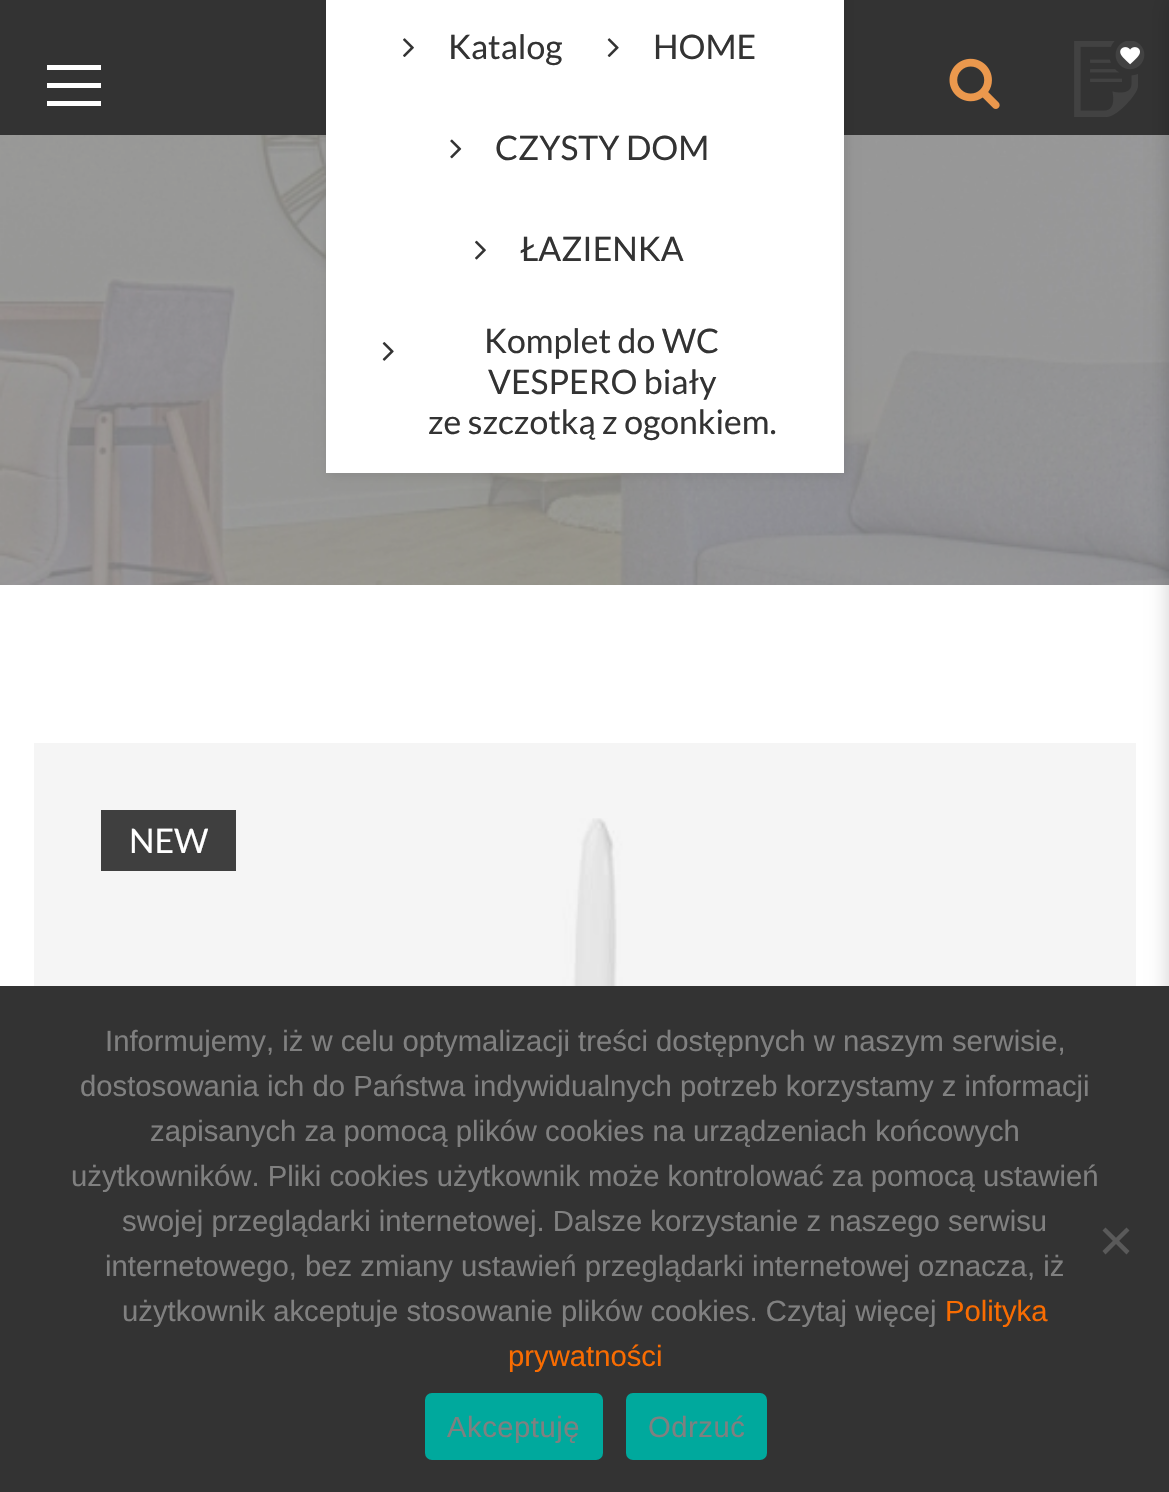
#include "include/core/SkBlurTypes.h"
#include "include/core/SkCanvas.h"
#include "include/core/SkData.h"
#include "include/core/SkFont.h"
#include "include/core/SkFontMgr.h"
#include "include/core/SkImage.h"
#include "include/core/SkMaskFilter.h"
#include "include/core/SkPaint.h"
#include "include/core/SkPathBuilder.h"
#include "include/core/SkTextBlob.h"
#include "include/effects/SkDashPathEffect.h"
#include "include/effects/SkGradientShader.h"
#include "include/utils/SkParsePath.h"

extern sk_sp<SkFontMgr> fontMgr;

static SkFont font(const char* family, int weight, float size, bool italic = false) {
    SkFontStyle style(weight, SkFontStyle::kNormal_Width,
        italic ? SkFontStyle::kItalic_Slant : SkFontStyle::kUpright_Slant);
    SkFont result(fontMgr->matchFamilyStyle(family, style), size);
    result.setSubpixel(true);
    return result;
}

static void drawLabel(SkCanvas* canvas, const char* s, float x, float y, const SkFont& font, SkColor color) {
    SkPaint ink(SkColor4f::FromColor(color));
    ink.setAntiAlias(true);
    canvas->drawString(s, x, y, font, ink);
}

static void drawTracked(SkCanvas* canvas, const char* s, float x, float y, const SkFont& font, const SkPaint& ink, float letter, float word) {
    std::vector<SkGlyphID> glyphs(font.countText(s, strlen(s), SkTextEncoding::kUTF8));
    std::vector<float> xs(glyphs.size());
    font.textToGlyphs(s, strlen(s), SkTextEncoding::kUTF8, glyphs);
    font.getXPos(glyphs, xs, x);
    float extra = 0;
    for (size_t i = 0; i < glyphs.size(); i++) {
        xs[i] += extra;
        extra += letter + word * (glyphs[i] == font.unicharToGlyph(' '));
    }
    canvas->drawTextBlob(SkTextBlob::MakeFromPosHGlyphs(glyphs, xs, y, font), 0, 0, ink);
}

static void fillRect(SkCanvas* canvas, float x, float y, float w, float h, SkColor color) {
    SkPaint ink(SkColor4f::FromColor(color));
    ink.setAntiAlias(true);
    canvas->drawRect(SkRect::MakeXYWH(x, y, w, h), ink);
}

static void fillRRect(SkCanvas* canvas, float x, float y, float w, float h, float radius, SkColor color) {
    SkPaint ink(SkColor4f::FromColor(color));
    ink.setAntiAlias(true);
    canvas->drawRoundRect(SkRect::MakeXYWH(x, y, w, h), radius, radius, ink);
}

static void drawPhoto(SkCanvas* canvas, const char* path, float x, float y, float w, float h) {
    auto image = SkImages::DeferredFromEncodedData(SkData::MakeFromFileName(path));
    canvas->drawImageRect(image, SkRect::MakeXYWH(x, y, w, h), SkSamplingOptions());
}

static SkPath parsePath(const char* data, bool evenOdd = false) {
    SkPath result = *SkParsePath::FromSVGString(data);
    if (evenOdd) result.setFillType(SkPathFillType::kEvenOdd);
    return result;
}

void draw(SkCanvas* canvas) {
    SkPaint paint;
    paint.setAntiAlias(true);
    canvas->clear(0xFFFFFFFF);
    fillRect(canvas, 34, 743, 1102, 243, 0xFFF5F5F5);
    fillRect(canvas, 0, 0, 1169, 135, 0xFF333333);
    fillRect(canvas, 47, 65, 54, 5, 0xFFFFFFFF);
    fillRect(canvas, 47, 83, 54, 5, 0xFFFFFFFF);
    fillRect(canvas, 47, 101, 54, 5, 0xFFFFFFFF);
    drawPhoto(canvas, "assets/img1.png", 949, 58, 51, 51);
    drawPhoto(canvas, "assets/img2.png", 1074, 41, 71, 76);
    drawPhoto(canvas, "assets/img8.png", 0, 135, 1169, 450);
    paint.setColor(0x1A000000);
    paint.setMaskFilter(SkMaskFilter::MakeBlur(kNormal_SkBlurStyle, 5.5f));
    canvas->drawRect(SkRect::MakeXYWH(329, -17, 517, 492), paint);
    paint.setMaskFilter(nullptr);
    fillRect(canvas, 326, 0, 518, 473, 0xFFFFFFFF);
    drawPhoto(canvas, "assets/img3.png", 403, 38, 11, 19);
    SkFont font1 = font("Lato", 400, 33.75f);
    drawLabel(canvas, "Katalog", 448, 59, font1, 0xFF333333);
    drawPhoto(canvas, "assets/img4.png", 607, 38, 12, 19);
    drawLabel(canvas, "HOME", 653, 59, font1, 0xFF333333);
    drawPhoto(canvas, "assets/img5.png", 450, 139, 12, 20);
    drawLabel(canvas, "CZYSTY DOM", 495, 160, font1, 0xFF333333);
    drawPhoto(canvas, "assets/img6.png", 475, 240, 11, 20);
    drawLabel(canvas, "ŁAZIENKA", 520, 261, font1, 0xFF333333);
    drawPhoto(canvas, "assets/img7.png", 382, 342, 12, 19);
    drawLabel(canvas, "Komplet do WC", 484, 353, font1, 0xFF333333);
    drawLabel(canvas, "VESPERO biały", 488, 394, font1, 0xFF333333);
    drawLabel(canvas, "ze szczotką z ogonkiem.", 428, 434, font1, 0xFF333333);
    fillRect(canvas, 101, 810, 135, 61, 0xFF3F3F3F);
    drawLabel(canvas, "NEW", 129, 853, font1, 0xFFFFFFFF);
    drawPhoto(canvas, "assets/img9.png", 467, 818, 251, 168);
    paint.setColor(0x33000000);
    paint.setMaskFilter(SkMaskFilter::MakeBlur(kNormal_SkBlurStyle, 11));
    canvas->drawRect(SkRect::MakeXYWH(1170, 0, 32, 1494), paint);
    paint.setMaskFilter(nullptr);
    fillRect(canvas, 0, 986, 1169, 506, 0xFF333333);
    SkFont font2 = font("Liberation Sans", 400, 29.25f);
    drawLabel(canvas, "Informujemy, iż w celu optymalizacji treści dostępnych w naszym serwisie,", 105, 1051, font2, 0xFF808080);
    drawLabel(canvas, "dostosowania ich do Państwa indywidualnych potrzeb korzystamy z informacji", 80, 1096, font2, 0xFF808080);
    drawLabel(canvas, "zapisanych za pomocą plików cookies na urządzeniach końcowych", 150, 1141, font2, 0xFF808080);
    drawLabel(canvas, "użytkowników. Pliki cookies użytkownik może kontrolować za pomocą ustawień", 71, 1186, font2, 0xFF808080);
    drawLabel(canvas, "swojej przeglądarki internetowej. Dalsze korzystanie z naszego serwisu", 122, 1231, font2, 0xFF808080);
    drawLabel(canvas, "internetowego, bez zmiany ustawień przeglądarki internetowej oznacza, iż", 105, 1276, font2, 0xFF808080);
    drawLabel(canvas, "użytkownik akceptuje stosowanie plików cookies. Czytaj więcej", 122, 1321, font2, 0xFF808080);
    drawLabel(canvas, "Polityka", 945, 1321, font2, 0xFFF96C01);
    drawLabel(canvas, "prywatności", 508, 1366, font2, 0xFFF96C01);
    paint.setColor(0xFF5A5A5A);
    canvas->drawPath(parsePath("M1126.5 1227.5L1129.5 1230.5L1105.5 1254.5L1102.5 1251Z"), paint);
    canvas->drawPath(parsePath("M1102.5 1230.5L1105.5 1227.5L1129.5 1251L1126.5 1254.5Z"), paint);
    fillRRect(canvas, 425, 1393, 178, 67, 7, 0xFF00A99D);
    paint.setColor(0xFF808080);
    drawTracked(canvas, "Akceptuję", 447, 1437, font2, paint, 0.5f, 0);
    fillRRect(canvas, 626, 1393, 141, 67, 7, 0xFF00A99D);
    drawTracked(canvas, "Odrzuć", 648, 1437, font2, paint, 0.5f, 0);
}
